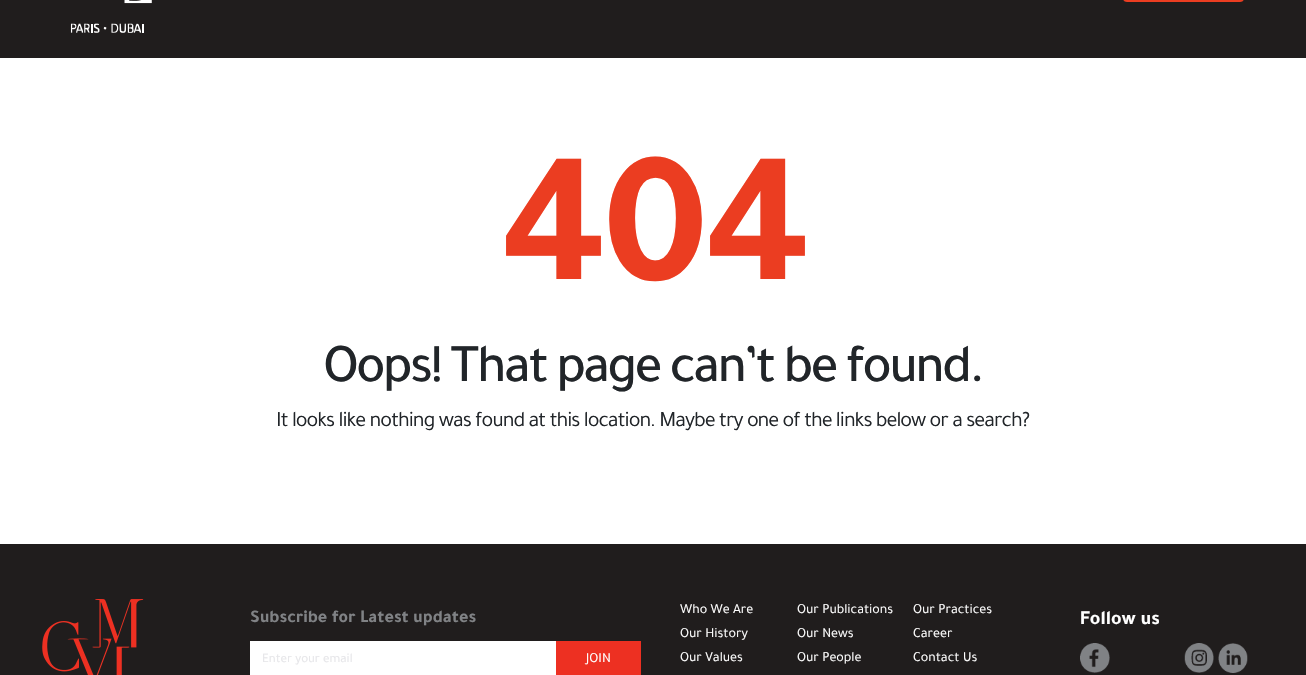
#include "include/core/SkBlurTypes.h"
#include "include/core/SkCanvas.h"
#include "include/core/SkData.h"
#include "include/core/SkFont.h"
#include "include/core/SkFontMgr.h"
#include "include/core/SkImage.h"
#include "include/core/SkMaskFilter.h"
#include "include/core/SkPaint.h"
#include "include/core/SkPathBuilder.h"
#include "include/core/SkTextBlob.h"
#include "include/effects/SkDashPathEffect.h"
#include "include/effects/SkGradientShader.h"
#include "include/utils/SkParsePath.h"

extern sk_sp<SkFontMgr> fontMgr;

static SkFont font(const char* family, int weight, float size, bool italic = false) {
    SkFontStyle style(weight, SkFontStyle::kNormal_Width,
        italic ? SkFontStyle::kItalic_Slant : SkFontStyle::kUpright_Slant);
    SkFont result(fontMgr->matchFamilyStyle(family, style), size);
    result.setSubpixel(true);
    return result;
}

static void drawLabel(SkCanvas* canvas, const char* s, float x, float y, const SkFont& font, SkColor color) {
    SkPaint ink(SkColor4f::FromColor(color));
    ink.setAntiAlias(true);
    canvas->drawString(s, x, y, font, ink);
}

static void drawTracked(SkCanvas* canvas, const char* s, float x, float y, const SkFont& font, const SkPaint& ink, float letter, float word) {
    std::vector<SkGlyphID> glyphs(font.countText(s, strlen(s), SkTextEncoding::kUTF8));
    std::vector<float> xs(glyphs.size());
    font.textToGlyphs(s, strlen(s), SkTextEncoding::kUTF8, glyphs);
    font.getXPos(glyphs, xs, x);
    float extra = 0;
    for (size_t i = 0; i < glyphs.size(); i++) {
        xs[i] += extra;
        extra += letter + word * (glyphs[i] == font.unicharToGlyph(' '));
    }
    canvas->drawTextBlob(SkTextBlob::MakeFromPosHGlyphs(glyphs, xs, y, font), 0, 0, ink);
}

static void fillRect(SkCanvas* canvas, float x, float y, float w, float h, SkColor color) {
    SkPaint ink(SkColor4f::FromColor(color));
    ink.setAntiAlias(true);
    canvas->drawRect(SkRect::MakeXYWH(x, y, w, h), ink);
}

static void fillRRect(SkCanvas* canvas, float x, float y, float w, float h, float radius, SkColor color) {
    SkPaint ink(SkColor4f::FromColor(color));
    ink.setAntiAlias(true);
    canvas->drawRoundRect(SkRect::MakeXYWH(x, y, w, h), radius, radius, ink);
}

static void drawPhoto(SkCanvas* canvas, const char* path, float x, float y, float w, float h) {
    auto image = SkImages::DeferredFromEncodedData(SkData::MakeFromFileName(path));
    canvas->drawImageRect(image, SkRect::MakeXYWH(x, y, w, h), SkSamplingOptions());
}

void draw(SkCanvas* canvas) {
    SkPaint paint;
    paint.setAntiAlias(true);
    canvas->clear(0xFFFFFFFF);
    fillRect(canvas, 0, 0, 1306, 58, 0xFF201D1D);
    fillRRect(canvas, 1123, -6, 121, 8, 6, 0xFFEB3D21);
    drawPhoto(canvas, "assets/img1.png", 70, 0, 82, 33);
    SkFont font1 = font("Tajawal", 700, 190);
    paint.setColor(0xFFEB3D21);
    drawTracked(canvas, "404", 500, 279, font1, paint, -5, 0);
    SkFont font2 = font("Tajawal", 500, 55);
    paint.setColor(0xFF212529);
    drawTracked(canvas, "Oops! That page can’t be found.", 323, 381, font2, paint, -3, 0);
    SkFont font3 = font("Tajawal", 400, 22);
    drawTracked(canvas, "It looks like nothing was found at this location. Maybe try one of the links below or a search?", 276, 426, font3, paint, -1, 0);
    fillRect(canvas, 0, 544, 1306, 131, 0xFF201D1D);
    drawPhoto(canvas, "assets/img2.png", 42, 599, 102, 76);
    SkFont font4 = font("Tajawal", 700, 18);
    drawLabel(canvas, "Subscribe for Latest updates", 250, 622, font4, 0xFF808285);
    fillRect(canvas, 250, 641, 306, 34, 0xFFFFFFFF);
    SkFont font5 = font("Tajawal", 400, 13);
    drawLabel(canvas, "Enter your email", 262, 662, font5, 0xFFE6E6E9);
    fillRect(canvas, 556, 641, 85, 34, 0xFFED3022);
    SkFont font6 = font("Tajawal", 400, 14);
    drawLabel(canvas, "JOIN", 586, 662, font6, 0xFFFFFFFF);
    drawLabel(canvas, "Who We Are", 680, 613, font6, 0xFFFFFFFF);
    drawLabel(canvas, "Our History", 680, 637, font6, 0xFFFFFFFF);
    drawLabel(canvas, "Our Values", 680, 661, font6, 0xFFFFFFFF);
    drawLabel(canvas, "Our Publications", 797, 613, font6, 0xFFFFFFFF);
    drawLabel(canvas, "Our News", 797, 637, font6, 0xFFFFFFFF);
    drawLabel(canvas, "Our People", 797, 661, font6, 0xFFFFFFFF);
    drawLabel(canvas, "Our Practices", 913, 613, font6, 0xFFFFFFFF);
    drawLabel(canvas, "Career", 913, 637, font6, 0xFFFFFFFF);
    drawLabel(canvas, "Contact Us", 913, 661, font6, 0xFFFFFFFF);
    SkFont font7 = font("Tajawal", 700, 20);
    drawLabel(canvas, "Follow us", 1080, 624, font7, 0xFFFFFFFF);
    drawPhoto(canvas, "assets/img3.png", 1080, 643, 30, 30);
    drawPhoto(canvas, "assets/img4.png", 1184, 643, 30, 30);
    drawPhoto(canvas, "assets/img5.png", 1218, 643, 30, 30);
}
